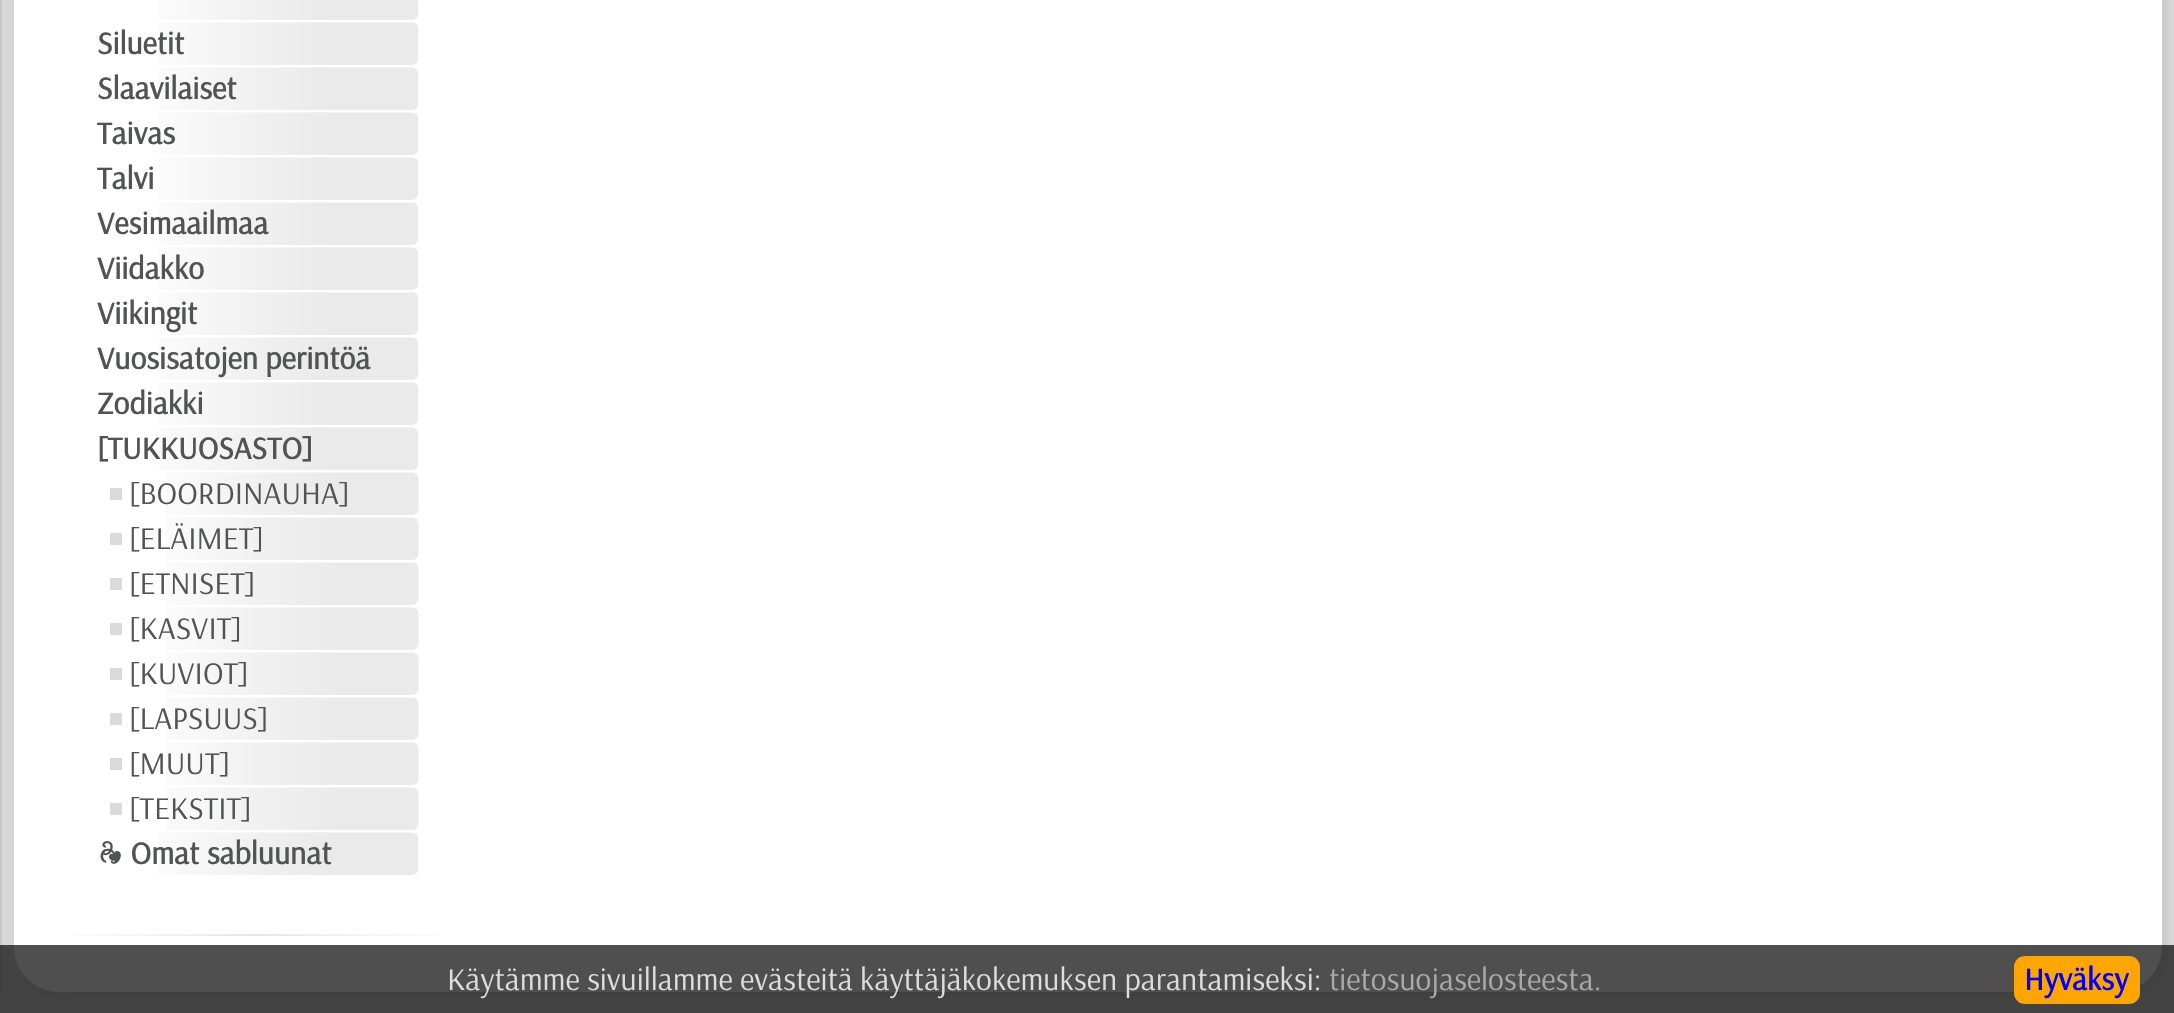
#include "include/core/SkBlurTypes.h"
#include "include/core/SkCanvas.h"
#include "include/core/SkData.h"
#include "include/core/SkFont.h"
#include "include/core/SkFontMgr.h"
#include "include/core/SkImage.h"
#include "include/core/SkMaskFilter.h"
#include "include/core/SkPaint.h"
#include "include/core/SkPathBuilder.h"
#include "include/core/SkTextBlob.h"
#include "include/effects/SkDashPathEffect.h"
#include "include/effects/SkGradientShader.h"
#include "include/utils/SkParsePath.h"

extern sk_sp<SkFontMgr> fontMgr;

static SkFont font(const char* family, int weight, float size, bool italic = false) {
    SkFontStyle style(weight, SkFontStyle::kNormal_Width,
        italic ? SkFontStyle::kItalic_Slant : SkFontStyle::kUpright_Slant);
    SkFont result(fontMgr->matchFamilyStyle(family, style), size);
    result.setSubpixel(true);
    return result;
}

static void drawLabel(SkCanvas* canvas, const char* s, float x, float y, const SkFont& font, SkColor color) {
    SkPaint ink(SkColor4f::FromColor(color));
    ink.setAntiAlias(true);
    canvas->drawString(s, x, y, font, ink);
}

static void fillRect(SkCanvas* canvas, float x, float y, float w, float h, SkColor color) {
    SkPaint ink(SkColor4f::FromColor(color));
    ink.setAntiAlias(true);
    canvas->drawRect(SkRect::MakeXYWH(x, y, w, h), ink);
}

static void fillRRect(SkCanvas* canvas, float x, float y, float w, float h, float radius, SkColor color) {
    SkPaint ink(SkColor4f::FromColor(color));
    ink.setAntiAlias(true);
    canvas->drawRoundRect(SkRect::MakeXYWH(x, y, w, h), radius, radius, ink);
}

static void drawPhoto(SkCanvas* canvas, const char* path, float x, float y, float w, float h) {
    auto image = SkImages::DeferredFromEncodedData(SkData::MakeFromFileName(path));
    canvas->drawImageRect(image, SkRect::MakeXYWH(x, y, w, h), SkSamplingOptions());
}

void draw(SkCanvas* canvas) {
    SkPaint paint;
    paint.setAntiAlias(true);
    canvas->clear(0xFFD9D9D9);
    fillRect(canvas, 0, 0, 2, 992, 0xFFC6C6C6);
    paint.setColor(0xFFCCCCCC);
    paint.setMaskFilter(SkMaskFilter::MakeBlur(kNormal_SkBlurStyle, 4.5f));
    canvas->drawRoundRect(SkRect::MakeXYWH(16, -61, 2153, 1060), 47, 47, paint);
    paint.setMaskFilter(nullptr);
    fillRRect(canvas, 14, -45, 2148, 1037, 45, 0xFFFFFFFF);
    drawPhoto(canvas, "assets/img1.png", 159, 0, 260, 20);
    drawPhoto(canvas, "assets/img2.png", 159, 22, 260, 43);
    fillRect(canvas, 312, 22, 16, 1, 0xFFF0F0F0);
    SkFont font1 = font("Arsenal", 700, 31.5f);
    drawLabel(canvas, "Siluetit", 97, 54, font1, 0xFF525353);
    drawPhoto(canvas, "assets/img2.png", 159, 67, 260, 43);
    fillRect(canvas, 312, 67, 16, 1, 0xFFF0F0F0);
    drawLabel(canvas, "Slaavilaiset", 97, 99, font1, 0xFF525353);
    drawPhoto(canvas, "assets/img3.png", 159, 112, 260, 43);
    fillRect(canvas, 312, 112, 16, 1, 0xFFF0F0F0);
    drawLabel(canvas, "Taivas", 97, 144, font1, 0xFF525353);
    drawPhoto(canvas, "assets/img2.png", 159, 157, 260, 43);
    fillRect(canvas, 312, 157, 16, 1, 0xFFF0F0F0);
    drawLabel(canvas, "Talvi", 97, 189, font1, 0xFF525353);
    drawPhoto(canvas, "assets/img2.png", 159, 202, 260, 43);
    fillRect(canvas, 312, 202, 16, 1, 0xFFF0F0F0);
    drawLabel(canvas, "Vesimaailmaa", 97, 234, font1, 0xFF525353);
    drawPhoto(canvas, "assets/img2.png", 159, 247, 260, 43);
    fillRect(canvas, 312, 247, 16, 1, 0xFFF0F0F0);
    drawLabel(canvas, "Viidakko", 97, 279, font1, 0xFF525353);
    drawPhoto(canvas, "assets/img2.png", 159, 292, 260, 43);
    fillRect(canvas, 312, 292, 16, 1, 0xFFF0F0F0);
    drawLabel(canvas, "Viikingit", 97, 324, font1, 0xFF525353);
    drawPhoto(canvas, "assets/img2.png", 159, 337, 260, 43);
    fillRect(canvas, 312, 337, 16, 1, 0xFFF0F0F0);
    drawLabel(canvas, "Vuosisatojen perintöä", 97, 369, font1, 0xFF525353);
    drawPhoto(canvas, "assets/img2.png", 159, 382, 260, 43);
    fillRect(canvas, 312, 382, 16, 1, 0xFFF0F0F0);
    drawLabel(canvas, "Zodiakki", 97, 414, font1, 0xFF525353);
    drawPhoto(canvas, "assets/img2.png", 159, 427, 260, 43);
    fillRect(canvas, 312, 427, 16, 1, 0xFFF0F0F0);
    drawLabel(canvas, "[TUKKUOSASTO]", 97, 459, font1, 0xFF525353);
    drawPhoto(canvas, "assets/img4.png", 166, 472, 253, 43);
    fillRect(canvas, 110, 488, 12, 12, 0xFFDADADA);
    drawPhoto(canvas, "assets/img5.png", 413, 473, 6, 42);
    SkFont font2 = font("Arsenal", 400, 31.5f);
    drawLabel(canvas, "[BOORDINAUHA]", 129, 504, font2, 0xFF525353);
    drawPhoto(canvas, "assets/img4.png", 166, 517, 253, 43);
    fillRect(canvas, 110, 533, 12, 12, 0xFFDADADA);
    drawPhoto(canvas, "assets/img5.png", 413, 518, 6, 42);
    drawLabel(canvas, "[ELÄIMET]", 129, 549, font2, 0xFF525353);
    drawPhoto(canvas, "assets/img4.png", 166, 562, 253, 43);
    fillRect(canvas, 110, 578, 12, 12, 0xFFDADADA);
    drawPhoto(canvas, "assets/img5.png", 413, 563, 6, 42);
    drawLabel(canvas, "[ETNISET]", 129, 594, font2, 0xFF525353);
    drawPhoto(canvas, "assets/img4.png", 166, 607, 253, 43);
    fillRect(canvas, 110, 623, 12, 12, 0xFFDADADA);
    drawPhoto(canvas, "assets/img5.png", 413, 608, 6, 42);
    drawLabel(canvas, "[KASVIT]", 129, 639, font2, 0xFF525353);
    drawPhoto(canvas, "assets/img4.png", 166, 652, 253, 43);
    fillRect(canvas, 110, 668, 12, 12, 0xFFDADADA);
    drawPhoto(canvas, "assets/img5.png", 413, 653, 6, 42);
    drawLabel(canvas, "[KUVIOT]", 129, 684, font2, 0xFF525353);
    drawPhoto(canvas, "assets/img4.png", 166, 697, 253, 43);
    fillRect(canvas, 110, 713, 12, 12, 0xFFDADADA);
    drawPhoto(canvas, "assets/img5.png", 413, 698, 6, 42);
    drawLabel(canvas, "[LAPSUUS]", 129, 729, font2, 0xFF525353);
    drawPhoto(canvas, "assets/img4.png", 166, 742, 253, 43);
    fillRect(canvas, 110, 758, 12, 12, 0xFFDADADA);
    drawPhoto(canvas, "assets/img5.png", 413, 743, 6, 42);
    drawLabel(canvas, "[MUUT]", 129, 774, font2, 0xFF525353);
    drawPhoto(canvas, "assets/img4.png", 166, 787, 253, 43);
    fillRect(canvas, 110, 803, 12, 12, 0xFFDADADA);
    drawPhoto(canvas, "assets/img5.png", 413, 788, 6, 42);
    drawLabel(canvas, "[TEKSTIT]", 129, 819, font2, 0xFF525353);
    drawPhoto(canvas, "assets/img2.png", 159, 832, 260, 43);
    fillRect(canvas, 312, 832, 16, 1, 0xFFF0F0F0);
    drawLabel(canvas, "❧ Omat sabluunat", 97, 864, font1, 0xFF525353);
    {
        const SkColor colors[] = {0xFFFFFFFF, 0xFFE6E6E6, 0xFFFFFFFF};
        const float stops[] = {0, 0.5f, 1};
        const SkPoint ends[] = {{50, 935}, {461, 935}};
        paint.setShader(SkGradientShader::MakeLinear(ends, colors, stops, 3, SkTileMode::kClamp));
        paint.setAlpha(255);
    }
    canvas->drawRect(SkRect::MakeXYWH(71, 934, 369, 2), paint);
    fillRect(canvas, 0, 945, 2174, 68, 0xB0000000);
    drawLabel(canvas, "Käytämme sivuillamme evästeitä käyttäjäkokemuksen parantamiseksi:", 447, 990, font2, 0xFFDDDDDD);
    drawLabel(canvas, "tietosuojaselosteesta.", 1329, 990, font2, 0xFFAAAAAA);
    fillRRect(canvas, 2014, 956, 126, 48, 11, 0xFFFFA500);
    drawLabel(canvas, "Hyväksy", 2024, 990, font1, 0xFF0000FF);
}
